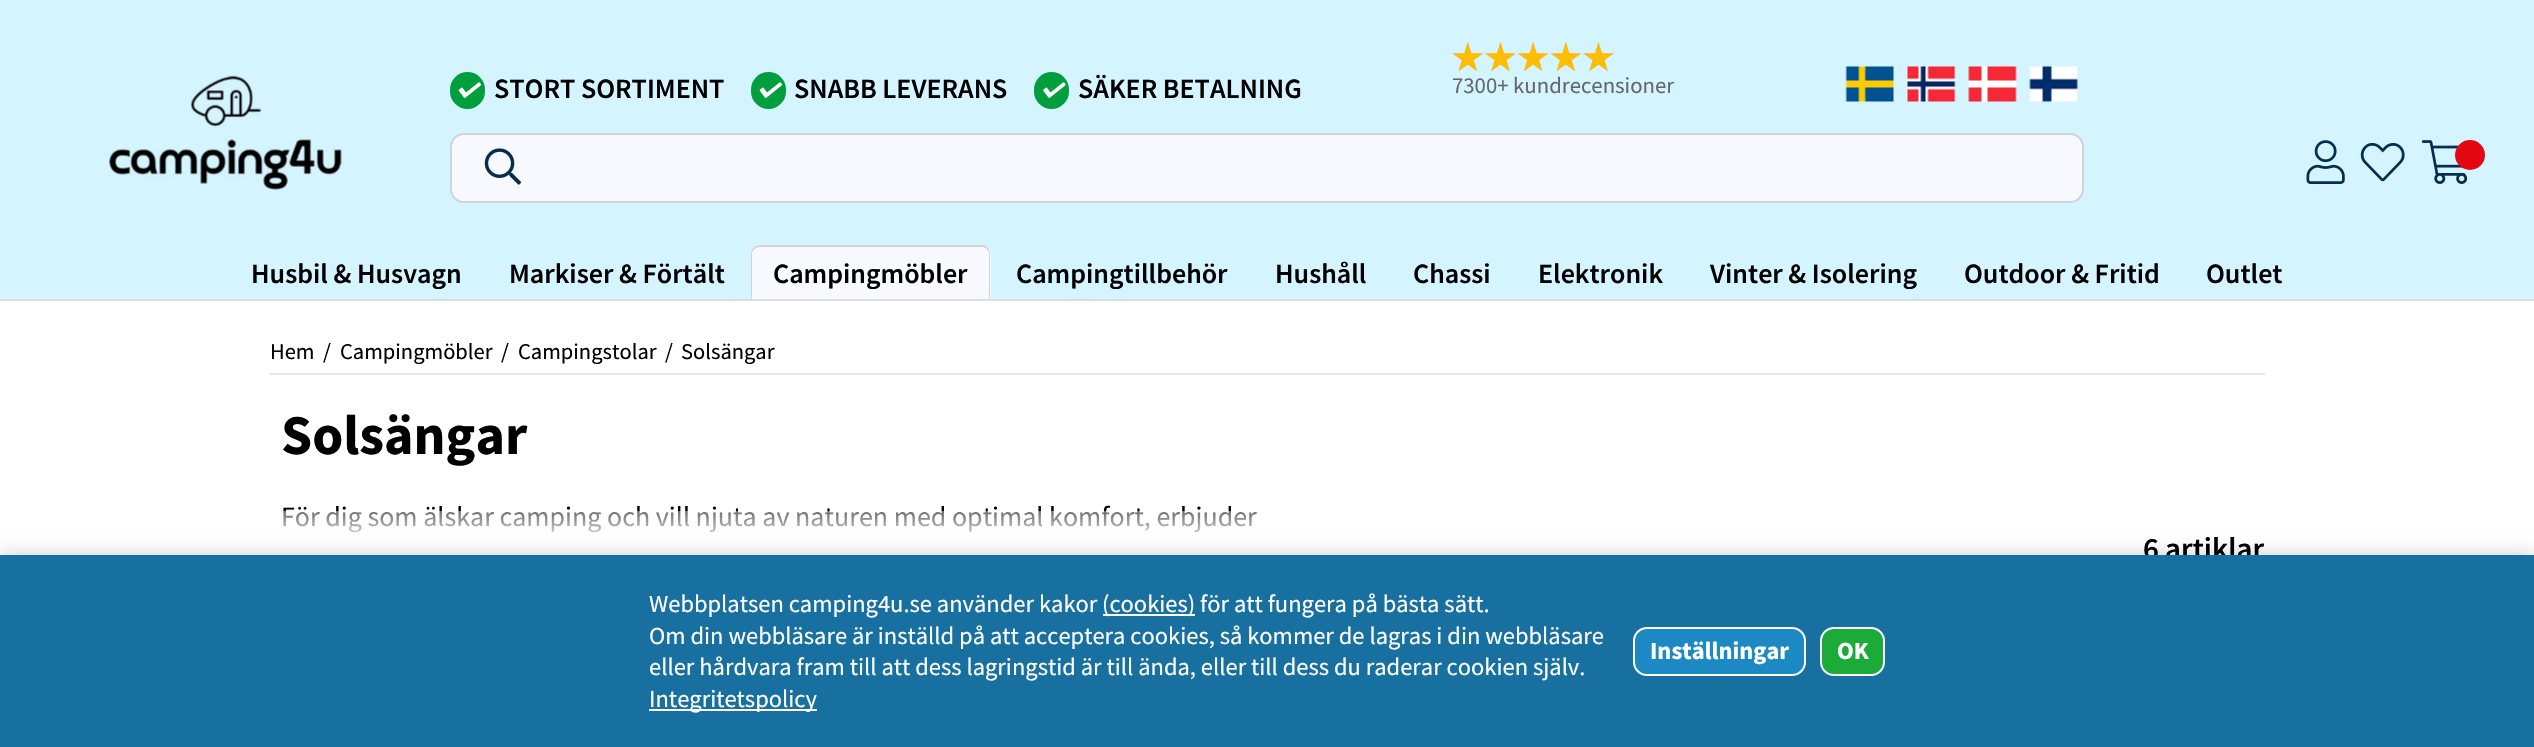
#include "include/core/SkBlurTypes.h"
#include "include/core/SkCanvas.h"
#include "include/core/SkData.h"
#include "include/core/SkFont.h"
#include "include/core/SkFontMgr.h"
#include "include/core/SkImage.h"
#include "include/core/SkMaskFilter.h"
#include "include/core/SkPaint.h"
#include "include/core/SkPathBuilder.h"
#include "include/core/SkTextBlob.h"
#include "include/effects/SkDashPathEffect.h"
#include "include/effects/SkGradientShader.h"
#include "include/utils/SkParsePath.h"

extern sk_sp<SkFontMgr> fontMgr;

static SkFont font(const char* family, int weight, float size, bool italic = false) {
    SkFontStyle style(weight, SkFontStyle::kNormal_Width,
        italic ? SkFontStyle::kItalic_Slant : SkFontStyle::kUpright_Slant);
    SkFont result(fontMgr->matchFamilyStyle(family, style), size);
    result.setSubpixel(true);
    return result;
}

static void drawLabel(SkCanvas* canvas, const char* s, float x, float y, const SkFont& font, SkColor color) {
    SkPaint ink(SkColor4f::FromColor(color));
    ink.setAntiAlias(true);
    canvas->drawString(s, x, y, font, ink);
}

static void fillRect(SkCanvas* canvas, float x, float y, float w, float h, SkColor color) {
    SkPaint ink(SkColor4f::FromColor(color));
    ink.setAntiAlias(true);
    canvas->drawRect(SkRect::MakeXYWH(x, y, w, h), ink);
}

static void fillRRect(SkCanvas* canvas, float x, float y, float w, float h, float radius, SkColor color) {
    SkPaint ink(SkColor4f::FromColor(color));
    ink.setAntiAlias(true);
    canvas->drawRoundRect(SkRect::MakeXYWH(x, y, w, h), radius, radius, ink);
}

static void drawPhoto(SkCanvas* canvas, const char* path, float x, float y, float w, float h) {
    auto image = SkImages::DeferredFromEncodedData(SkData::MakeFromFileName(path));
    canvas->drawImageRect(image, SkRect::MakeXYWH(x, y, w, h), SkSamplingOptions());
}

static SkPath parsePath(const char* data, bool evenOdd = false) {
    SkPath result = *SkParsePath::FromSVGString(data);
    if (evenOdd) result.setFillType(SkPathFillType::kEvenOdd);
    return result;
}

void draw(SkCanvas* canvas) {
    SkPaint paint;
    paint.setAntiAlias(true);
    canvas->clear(0xFFFFFFFF);
    fillRect(canvas, 0, 0, 2534, 299, 0xFFD4F4FF);
    drawPhoto(canvas, "assets/img1.png", 108, 75, 235, 115);
    fillRRect(canvas, 450, 72, 35, 37, 17.5f, 0xFF009E3C);
    SkFont font1 = font("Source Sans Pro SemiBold", 600, 28);
    drawLabel(canvas, "STORT SORTIMENT", 494, 98, font1, 0xFF000000);
    drawPhoto(canvas, "assets/img2.png", 458, 82, 24, 16);
    fillRRect(canvas, 751, 72, 35, 37, 17.5f, 0xFF009E3C);
    drawLabel(canvas, "SNABB LEVERANS", 794, 98, font1, 0xFF000000);
    drawPhoto(canvas, "assets/img2.png", 759, 82, 24, 16);
    fillRRect(canvas, 1034, 72, 35, 37, 17.5f, 0xFF009E3C);
    drawLabel(canvas, "SÄKER BETALNING", 1078, 98, font1, 0xFF000000);
    drawPhoto(canvas, "assets/img3.png", 1043, 82, 23, 16);
    drawPhoto(canvas, "assets/img4.png", 1453, 42, 161, 29);
    drawPhoto(canvas, "assets/img5.png", 1453, 42, 161, 29);
    SkFont font2 = font("Source Sans Pro", 400, 22.75f);
    drawLabel(canvas, "7300+ kundrecensioner", 1452, 93, font2, 0xFF666666);
    drawPhoto(canvas, "assets/img6.png", 1845, 66, 49, 36);
    drawPhoto(canvas, "assets/img7.png", 1907, 66, 49, 36);
    drawPhoto(canvas, "assets/img8.png", 1968, 66, 49, 36);
    drawPhoto(canvas, "assets/img9.png", 2029, 66, 49, 36);
    paint.setColor(0xFFF8F8FF);
    canvas->drawRoundRect(SkRect::MakeXYWH(451, 134, 1632, 68), 13, 13, paint);
    paint.setStroke(true);
    paint.setStrokeWidth(2);
    paint.setColor(0xFFD3D3D3);
    canvas->drawRoundRect(SkRect::MakeXYWH(451, 134, 1632, 68), 13, 13, paint);
    drawPhoto(canvas, "assets/img10.png", 484, 148, 38, 37);
    drawPhoto(canvas, "assets/img11.png", 2306, 140, 39, 44);
    drawPhoto(canvas, "assets/img12.png", 2360, 142, 45, 40);
    drawPhoto(canvas, "assets/img13.png", 2422, 140, 46, 44);
    paint.setStroke(false);
    paint.setColor(0xFFE30613);
    canvas->drawCircle(2470, 155, 15, paint);
    fillRect(canvas, 0, 299, 2534, 2, 0xFFDDDDDD);
    drawLabel(canvas, "Husbil & Husvagn", 251, 283, font1, 0xFF000000);
    drawLabel(canvas, "Markiser & Förtält", 509, 283, font1, 0xFF000000);
    paint.setColor(0xFFF8F8FF);
    canvas->drawPath(parsePath("M760 245H982C987 245 991 249 991 254V299H751V254C751 249 755 245 760 245Z"), paint);
    paint.setColor(0xFFD3D3D3);
    canvas->drawPath(parsePath("M760 245H982C987 245 990 249 990 254V299H751V254C751 249 755 245 760 245ZM760 247H982C986 247 989 250 989 254V299H752V254C752 250 756 247 760 247Z", true), paint);
    drawLabel(canvas, "Campingmöbler", 773, 283, font1, 0xFF000000);
    drawLabel(canvas, "Campingtillbehör", 1016, 283, font1, 0xFF000000);
    drawLabel(canvas, "Hushåll", 1275, 283, font1, 0xFF000000);
    drawLabel(canvas, "Chassi", 1413, 283, font1, 0xFF000000);
    drawLabel(canvas, "Elektronik", 1538, 283, font1, 0xFF000000);
    drawLabel(canvas, "Vinter & Isolering", 1710, 283, font1, 0xFF000000);
    drawLabel(canvas, "Outdoor & Fritid", 1964, 283, font1, 0xFF000000);
    drawLabel(canvas, "Outlet", 2206, 283, font1, 0xFF000000);
    fillRect(canvas, 270, 373, 1995, 2, 0xFFE4E4E4);
    SkFont font3 = font("Source Sans Pro", 400, 22.5f);
    drawLabel(canvas, "Hem", 270, 359, font3, 0xFF000000);
    drawLabel(canvas, "/", 323, 359, font3, 0xFF000000);
    drawLabel(canvas, "Campingmöbler", 340, 359, font3, 0xFF000000);
    drawLabel(canvas, "/", 501, 359, font3, 0xFF000000);
    drawLabel(canvas, "Campingstolar", 518, 359, font3, 0xFF000000);
    drawLabel(canvas, "/", 665, 359, font3, 0xFF000000);
    drawLabel(canvas, "Solsängar", 681, 359, font3, 0xFF000000);
    SkFont font4 = font("Source Sans Pro", 700, 56);
    drawLabel(canvas, "Solsängar", 281, 454, font4, 0xFF000000);
    SkFont font5 = font("Source Sans Pro", 400, 28);
    drawLabel(canvas, "För dig som älskar camping och vill njuta av naturen med optimal komfort, erbjuder", 281, 526, font5, 0xFF000000);
    {
        const SkColor colors[] = {0xFFFFFFFF, 0x6EFFFFFF};
        const float stops[] = {0.35f, 1};
        const SkPoint ends[] = {{851, 564}, {851, 511}};
        paint.setShader(SkGradientShader::MakeLinear(ends, colors, stops, 2, SkTileMode::kClamp));
        paint.setAlpha(255);
    }
    canvas->drawRect(SkRect::MakeXYWH(283, 511, 975, 22), paint);
    SkFont font6 = font("Source Sans Pro SemiBold", 600, 31);
    drawLabel(canvas, "6 artiklar", 2143, 559, font6, 0xFF000000);
    paint.setShader(nullptr);
    paint.setColor(0x33000000);
    paint.setMaskFilter(SkMaskFilter::MakeBlur(kNormal_SkBlurStyle, 9));
    canvas->drawRect(SkRect::MakeXYWH(0, 555, 2534, 192), paint);
    paint.setMaskFilter(nullptr);
    fillRect(canvas, 0, 555, 2534, 192, 0xFF1870A0);
    SkFont font7 = font("Source Sans Pro", 400, 24.5f);
    drawLabel(canvas, "Webbplatsen camping4u.se använder kakor", 649, 612, font7, 0xFFFFFFFF);
    fillRect(canvas, 1103, 614, 92, 2, 0xFFFFFFFF);
    drawLabel(canvas, "(cookies) för att fungera på bästa sätt.", 1102, 612, font7, 0xFFFFFFFF);
    drawLabel(canvas, "Om din webbläsare är inställd på att acceptera cookies, så kommer de lagras i din webbläsare", 649, 644, font7, 0xFFFFFFFF);
    drawLabel(canvas, "eller hårdvara fram till att dess lagringstid är till ända, eller till dess du raderar cookien själv.", 649, 675, font7, 0xFFFFFFFF);
    fillRect(canvas, 649, 709, 168, 2, 0xFFFFFFFF);
    drawLabel(canvas, "Integritetspolicy", 649, 707, font7, 0xFFFFFFFF);
    paint.setColor(0xFF1C89C4);
    canvas->drawRoundRect(SkRect::MakeXYWH(1634, 628, 171, 47), 13, 13, paint);
    paint.setStroke(true);
    paint.setColor(0xFFFFFFFF);
    canvas->drawRoundRect(SkRect::MakeXYWH(1634, 628, 171, 47), 13, 13, paint);
    SkFont font8 = font("Source Sans Pro", 700, 24.5f);
    drawLabel(canvas, "Inställningar", 1650, 659, font8, 0xFFFFFFFF);
    paint.setStroke(false);
    paint.setColor(0xFF1AAB39);
    canvas->drawRoundRect(SkRect::MakeXYWH(1821, 628, 63, 47), 13, 13, paint);
    paint.setStroke(true);
    paint.setColor(0xFFFFFFFF);
    canvas->drawRoundRect(SkRect::MakeXYWH(1821, 628, 63, 47), 13, 13, paint);
    drawLabel(canvas, "OK", 1837, 659, font8, 0xFFFFFFFF);
}
